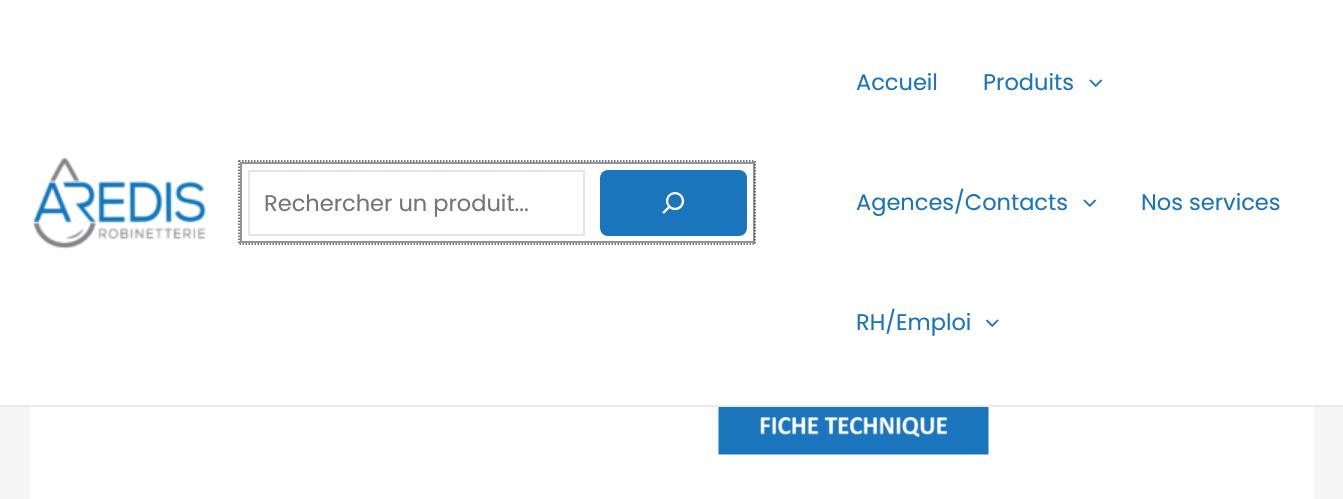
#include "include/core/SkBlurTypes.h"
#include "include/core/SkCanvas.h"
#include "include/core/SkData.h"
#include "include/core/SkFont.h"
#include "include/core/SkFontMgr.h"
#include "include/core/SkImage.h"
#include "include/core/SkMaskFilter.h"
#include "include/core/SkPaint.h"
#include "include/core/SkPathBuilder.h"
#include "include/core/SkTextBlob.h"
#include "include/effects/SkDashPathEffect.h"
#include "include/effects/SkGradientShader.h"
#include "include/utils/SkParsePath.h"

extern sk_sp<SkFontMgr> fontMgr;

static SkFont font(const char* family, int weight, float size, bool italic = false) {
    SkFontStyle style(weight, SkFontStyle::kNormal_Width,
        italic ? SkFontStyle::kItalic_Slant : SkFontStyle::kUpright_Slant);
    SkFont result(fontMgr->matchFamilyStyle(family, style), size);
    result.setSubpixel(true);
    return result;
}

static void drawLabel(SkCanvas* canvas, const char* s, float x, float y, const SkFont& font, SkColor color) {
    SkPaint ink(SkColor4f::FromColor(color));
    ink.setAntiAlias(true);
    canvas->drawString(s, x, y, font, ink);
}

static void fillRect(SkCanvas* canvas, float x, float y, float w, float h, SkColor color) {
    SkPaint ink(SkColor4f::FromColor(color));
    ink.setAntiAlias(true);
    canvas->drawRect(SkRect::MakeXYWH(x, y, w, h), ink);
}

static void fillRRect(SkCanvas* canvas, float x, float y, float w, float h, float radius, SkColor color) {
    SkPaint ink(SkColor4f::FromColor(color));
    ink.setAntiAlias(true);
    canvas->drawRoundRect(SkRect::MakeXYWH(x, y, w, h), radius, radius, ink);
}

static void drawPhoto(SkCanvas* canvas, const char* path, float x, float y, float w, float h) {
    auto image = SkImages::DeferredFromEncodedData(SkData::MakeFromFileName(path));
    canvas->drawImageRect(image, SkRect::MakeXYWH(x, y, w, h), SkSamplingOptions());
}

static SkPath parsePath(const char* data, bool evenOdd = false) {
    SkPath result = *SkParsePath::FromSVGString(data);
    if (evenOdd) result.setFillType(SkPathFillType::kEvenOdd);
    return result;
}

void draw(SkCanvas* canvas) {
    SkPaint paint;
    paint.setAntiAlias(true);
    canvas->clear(0xFFF5F5F5);
    fillRect(canvas, 0, 0, 1343, 405, 0xFFFFFFFF);
    fillRect(canvas, 0, 405, 1343, 2, 0xFFEAEAEA);
    drawPhoto(canvas, "assets/img1.png", 32, 157, 174, 92);
    paint.setStroke(true);
    paint.setStrokeWidth(2);
    paint.setColor(0xFF949494);
    canvas->drawRect(SkRect::MakeXYWH(241, 163, 513, 79), paint);
    paint.setColor(0xFFE5E5E5);
    canvas->drawRect(SkRect::MakeXYWH(249, 171, 335, 64), paint);
    SkFont font1 = font("Poppins", 400, 22.5f);
    drawLabel(canvas, "Rechercher un produit...", 264, 211, font1, 0xFF757575);
    fillRRect(canvas, 600, 170, 147, 66, 8, 0xFF1B75BC);
    paint.setStrokeWidth(1.5f);
    paint.setColor(0xFF415161);
    paint.setPathEffect(SkDashPathEffect::Make({{1.5f, 1.5f}}, 0));
    canvas->drawPath(parsePath("M239 161H755V244H239Z"), paint);
    paint.setPathEffect(nullptr);
    drawPhoto(canvas, "assets/img2.png", 662, 192, 23, 22);
    drawLabel(canvas, "Accueil", 856, 90, font1, 0xFF1B75BC);
    drawLabel(canvas, "Produits", 983, 90, font1, 0xFF1B75BC);
    drawPhoto(canvas, "assets/img3.png", 1089, 79, 14, 8);
    drawLabel(canvas, "Agences/Contacts", 856, 210, font1, 0xFF1B75BC);
    drawPhoto(canvas, "assets/img3.png", 1083, 199, 14, 8);
    drawLabel(canvas, "Nos services", 1141, 210, font1, 0xFF1B75BC);
    drawLabel(canvas, "RH/Emploi", 856, 330, font1, 0xFF1B75BC);
    drawPhoto(canvas, "assets/img4.png", 986, 319, 13, 8);
    fillRect(canvas, 30, 407, 1284, 92, 0xFFFFFFFF);
    drawPhoto(canvas, "assets/img5.png", 718, 407, 271, 48);
}
